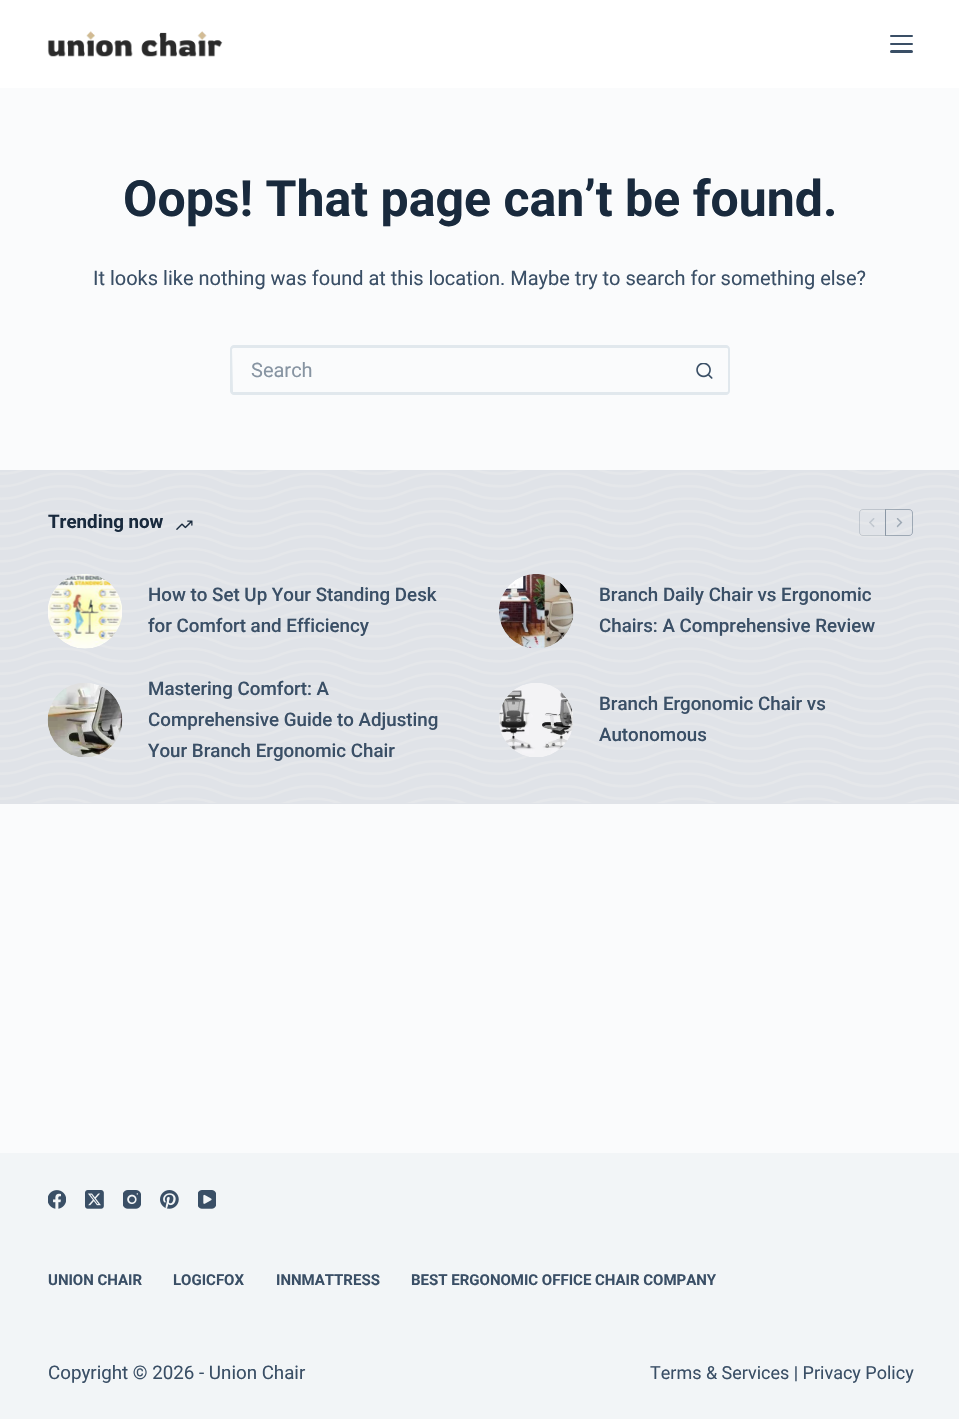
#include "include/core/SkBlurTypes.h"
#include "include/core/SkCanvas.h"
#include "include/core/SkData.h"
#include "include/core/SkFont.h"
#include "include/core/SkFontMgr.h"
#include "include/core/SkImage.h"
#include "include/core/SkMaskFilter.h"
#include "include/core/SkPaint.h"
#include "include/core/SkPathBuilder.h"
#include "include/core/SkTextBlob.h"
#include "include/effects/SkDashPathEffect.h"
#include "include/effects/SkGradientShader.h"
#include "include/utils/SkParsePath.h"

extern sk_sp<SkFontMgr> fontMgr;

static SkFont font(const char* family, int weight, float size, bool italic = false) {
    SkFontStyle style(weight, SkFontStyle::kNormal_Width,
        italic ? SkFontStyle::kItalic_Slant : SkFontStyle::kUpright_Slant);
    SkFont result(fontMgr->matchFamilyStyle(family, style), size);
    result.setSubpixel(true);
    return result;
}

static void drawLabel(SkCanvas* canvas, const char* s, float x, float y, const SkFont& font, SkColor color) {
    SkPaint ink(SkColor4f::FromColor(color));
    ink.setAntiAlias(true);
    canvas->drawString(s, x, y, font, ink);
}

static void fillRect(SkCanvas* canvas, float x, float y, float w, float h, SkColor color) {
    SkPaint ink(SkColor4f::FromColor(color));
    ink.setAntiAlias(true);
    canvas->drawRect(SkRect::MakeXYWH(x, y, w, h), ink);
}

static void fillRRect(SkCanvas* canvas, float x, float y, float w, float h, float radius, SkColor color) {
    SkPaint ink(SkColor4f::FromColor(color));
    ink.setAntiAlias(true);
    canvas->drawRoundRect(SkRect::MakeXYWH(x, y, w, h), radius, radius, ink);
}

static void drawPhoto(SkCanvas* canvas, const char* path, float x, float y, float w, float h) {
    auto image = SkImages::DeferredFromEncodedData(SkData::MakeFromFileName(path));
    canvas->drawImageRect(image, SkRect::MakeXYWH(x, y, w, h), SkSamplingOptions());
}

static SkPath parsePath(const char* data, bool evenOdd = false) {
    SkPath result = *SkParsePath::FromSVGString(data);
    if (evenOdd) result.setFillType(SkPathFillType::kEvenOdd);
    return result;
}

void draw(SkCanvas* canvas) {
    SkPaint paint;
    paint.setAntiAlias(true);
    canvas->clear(0xFFFAFBFC);
    fillRect(canvas, 0, 0, 959, 88, 0xFFFFFFFF);
    drawPhoto(canvas, "assets/img1.png", 47, 31, 176, 26);
    fillRRect(canvas, 890, 35, 23, 2, 1, 0xFF3A4F66);
    fillRRect(canvas, 890, 43, 23, 2, 1, 0xFF3A4F66);
    fillRRect(canvas, 890, 50, 23, 3, 1.5f, 0xFF3A4F66);
    SkFont font1 = font("Roboto", 700, 50);
    drawLabel(canvas, "Oops! That page can’t be found.", 123, 216, font1, 0xFF192A3D);
    SkFont font2 = font("Roboto", 400, 20);
    drawLabel(canvas, "It looks like nothing was found at this location. Maybe try to search for something else?", 93, 285, font2, 0xFF3A4F66);
    paint.setColor(0xFFE1E8ED);
    canvas->drawPath(parsePath("M234 345H680V395H234C232 395 230 393 230 391V349C230 347 232 345 234 345ZM234 348H680V392H233L232 349C233 348 233 348 234 348Z", true), paint);
    drawLabel(canvas, "Search", 251, 377, font2, 0xFF8794A2);
    canvas->drawPath(parsePath("M680 345H726C728 345 730 347 730 349V391C730 393 728 395 726 395H680ZM680 348H726C727 348 728 348 728 349V391C728 392 727 392 726 392H680Z", true), paint);
    drawPhoto(canvas, "assets/img2.png", 696, 363, 17, 16);
    fillRect(canvas, 0, 470, 959, 334, 0xFFE0E3E8);
    drawPhoto(canvas, "assets/img3.png", 0, 470, 959, 333);
    SkFont font3 = font("Roboto", 700, 18.75f);
    drawLabel(canvas, "Trending now", 48, 528, font3, 0xFF192A3D);
    drawPhoto(canvas, "assets/img4.png", 176, 520, 17, 10);
    paint.setStroke(true);
    paint.setStrokeWidth(1);
    paint.setColor(0x333A4F66);
    canvas->drawPath(parsePath("M863 509.5H885.5V535.5H863C861 535.5 859.5 534 859.5 532V513C859.5 511 861 509.5 863 509.5Z"), paint);
    drawPhoto(canvas, "assets/img5.png", 869, 518, 6, 10);
    paint.setColor(0x663A4F66);
    canvas->drawPath(parsePath("M885.5 509.5H909C911 509.5 912.5 511 912.5 513V532C912.5 534 911 535.5 909 535.5H885.5Z"), paint);
    drawPhoto(canvas, "assets/img6.png", 896, 518, 7, 10);
    drawPhoto(canvas, "assets/img7.png", 48, 574, 74, 75);
    SkFont font4 = font("Roboto", 500, 18.75f);
    drawLabel(canvas, "How to Set Up Your Standing Desk", 148, 601, font4, 0xFF3A4F66);
    drawLabel(canvas, "for Comfort and Efficiency", 148, 632, font4, 0xFF3A4F66);
    drawPhoto(canvas, "assets/img8.png", 499, 574, 75, 74);
    drawLabel(canvas, "Branch Daily Chair vs Ergonomic", 599, 601, font4, 0xFF3A4F66);
    drawLabel(canvas, "Chairs: A Comprehensive Review", 599, 632, font4, 0xFF3A4F66);
    drawPhoto(canvas, "assets/img9.png", 47, 683, 76, 74);
    drawLabel(canvas, "Mastering Comfort: A", 148, 695, font4, 0xFF3A4F66);
    drawLabel(canvas, "Comprehensive Guide to Adjusting", 148, 726, font4, 0xFF3A4F66);
    drawLabel(canvas, "Your Branch Ergonomic Chair", 148, 757, font4, 0xFF3A4F66);
    drawPhoto(canvas, "assets/img10.png", 499, 683, 74, 74);
    drawLabel(canvas, "Branch Ergonomic Chair vs", 599, 710, font4, 0xFF3A4F66);
    drawLabel(canvas, "Autonomous", 599, 741, font4, 0xFF3A4F66);
    fillRect(canvas, 0, 1153, 959, 266, 0xFFF2F5F7);
    drawPhoto(canvas, "assets/img11.png", 48, 1190, 18, 19);
    drawPhoto(canvas, "assets/img12.png", 85, 1190, 19, 19);
    drawPhoto(canvas, "assets/img13.png", 123, 1190, 18, 19);
    drawPhoto(canvas, "assets/img14.png", 160, 1190, 19, 19);
    drawPhoto(canvas, "assets/img15.png", 198, 1190, 18, 19);
    SkFont font5 = font("Roboto", 700, 15);
    drawLabel(canvas, "UNION CHAIR", 48, 1285, font5, 0xFF3A4F66);
    drawLabel(canvas, "LOGICFOX", 173, 1285, font5, 0xFF3A4F66);
    drawLabel(canvas, "INNMATTRESS", 276, 1285, font5, 0xFF3A4F66);
    drawLabel(canvas, "BEST ERGONOMIC OFFICE CHAIR COMPANY", 411, 1285, font5, 0xFF3A4F66);
    SkFont font6 = font("Roboto", 400, 18.75f);
    drawLabel(canvas, "Copyright © 2026 - Union Chair", 48, 1379, font6, 0xFF3A4F66);
    SkFont font7 = font("Roboto", 400, 18);
    drawLabel(canvas, "Terms & Services | Privacy Policy", 650, 1379, font7, 0xFF3A4F66);
}
